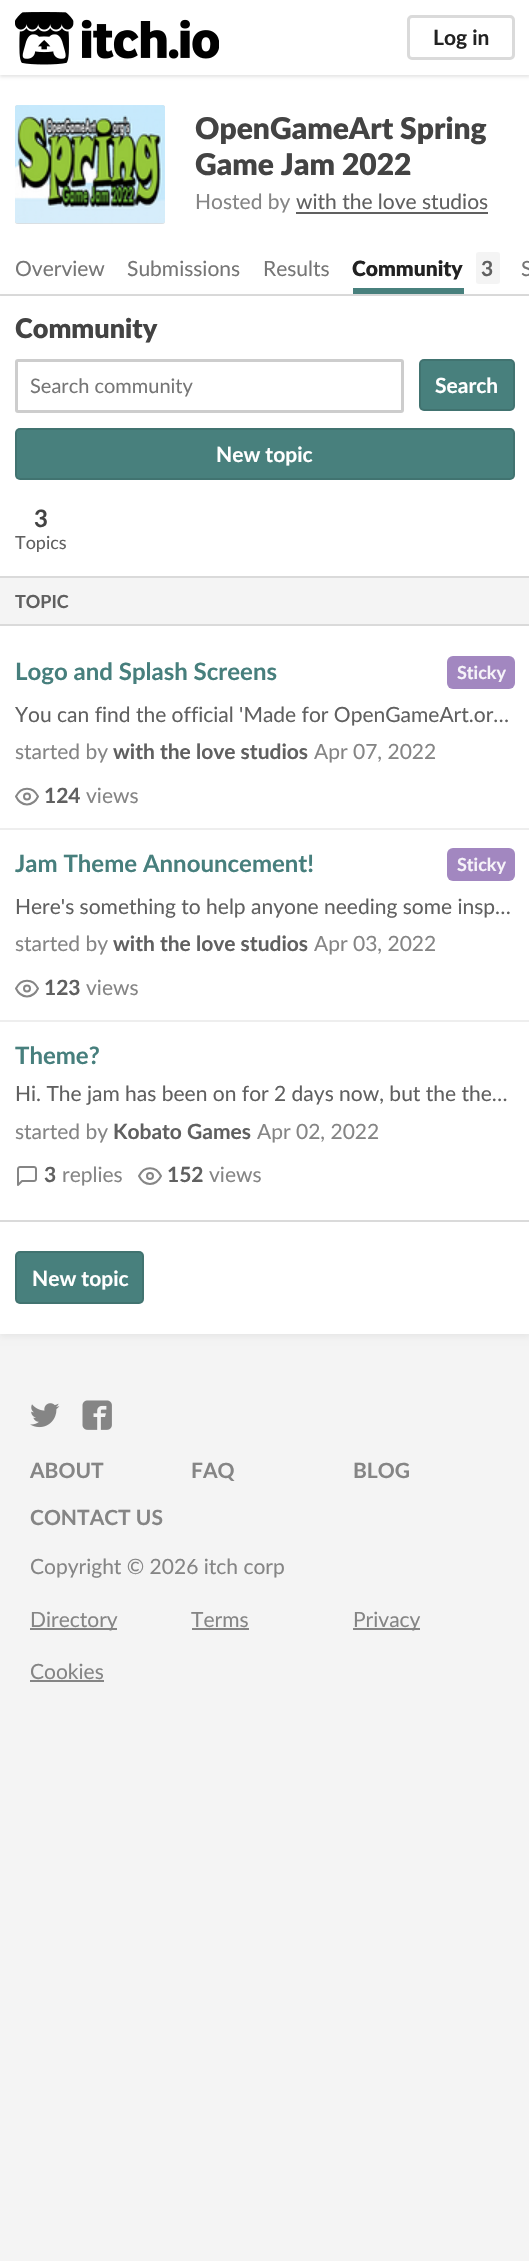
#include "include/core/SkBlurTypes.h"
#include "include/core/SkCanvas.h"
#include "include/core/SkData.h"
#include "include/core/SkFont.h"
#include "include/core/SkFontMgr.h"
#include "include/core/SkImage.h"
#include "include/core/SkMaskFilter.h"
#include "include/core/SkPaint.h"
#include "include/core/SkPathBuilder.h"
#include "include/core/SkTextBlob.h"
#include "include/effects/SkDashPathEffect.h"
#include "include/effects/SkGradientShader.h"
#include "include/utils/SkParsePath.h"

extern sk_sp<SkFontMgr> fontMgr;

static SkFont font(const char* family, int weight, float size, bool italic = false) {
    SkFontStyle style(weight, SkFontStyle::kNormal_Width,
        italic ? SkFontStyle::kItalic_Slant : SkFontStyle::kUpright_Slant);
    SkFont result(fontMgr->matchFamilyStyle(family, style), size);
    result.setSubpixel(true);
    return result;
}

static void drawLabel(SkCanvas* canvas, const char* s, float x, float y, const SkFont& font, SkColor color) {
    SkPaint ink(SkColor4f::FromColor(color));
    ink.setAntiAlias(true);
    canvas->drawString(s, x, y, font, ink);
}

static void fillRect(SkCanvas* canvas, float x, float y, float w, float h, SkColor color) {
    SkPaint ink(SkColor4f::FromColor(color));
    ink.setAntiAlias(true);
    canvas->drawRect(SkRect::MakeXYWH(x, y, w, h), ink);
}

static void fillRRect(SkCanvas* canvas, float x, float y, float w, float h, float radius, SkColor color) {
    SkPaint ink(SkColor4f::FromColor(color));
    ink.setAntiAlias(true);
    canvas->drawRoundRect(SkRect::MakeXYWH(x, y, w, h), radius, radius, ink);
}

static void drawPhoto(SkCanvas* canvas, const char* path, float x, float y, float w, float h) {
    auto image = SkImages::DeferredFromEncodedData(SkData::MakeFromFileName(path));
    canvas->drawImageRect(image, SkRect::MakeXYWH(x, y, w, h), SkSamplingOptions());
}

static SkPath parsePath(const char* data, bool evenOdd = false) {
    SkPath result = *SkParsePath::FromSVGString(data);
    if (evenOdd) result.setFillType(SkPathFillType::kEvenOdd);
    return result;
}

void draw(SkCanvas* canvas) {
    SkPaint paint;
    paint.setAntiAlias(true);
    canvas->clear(0xFFF4F4F4);
    fillRect(canvas, 0, 75, 529, 219, 0xFFFFFFFF);
    paint.setColor(0x1A000000);
    paint.setMaskFilter(SkMaskFilter::MakeBlur(kNormal_SkBlurStyle, 1.5f));
    canvas->drawRect(SkRect::MakeXYWH(0, 2, 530, 75), paint);
    paint.setMaskFilter(nullptr);
    fillRect(canvas, 0, 0, 529, 75, 0xFFFFFFFF);
    drawPhoto(canvas, "assets/img1.png", 15, 12, 204, 53);
    paint.setStroke(true);
    paint.setStrokeWidth(3);
    paint.setColor(0xFFDADADA);
    canvas->drawRoundRect(SkRect::MakeXYWH(408.5f, 16.5f, 105, 42), 3.5f, 3.5f, paint);
    SkFont font1 = font("Lato", 700, 21);
    drawLabel(canvas, "Log in", 433, 45, font1, 0xFF222222);
    fillRect(canvas, 0, 294, 529, 2, 0xFFDADADA);
    fillRRect(canvas, 15, 105, 150, 119, 3, 0xFFF4F4F4);
    paint.setStrokeWidth(2);
    paint.setColor(0x1A000000);
    canvas->drawRoundRect(SkRect::MakeXYWH(16, 106, 148, 117), 2, 2, paint);
    drawPhoto(canvas, "assets/img2.png", 15, 105, 150, 119);
    SkFont font2 = font("Lato", 900, 30);
    drawLabel(canvas, "OpenGameArt Spring", 195, 139, font2, 0xFF434343);
    drawLabel(canvas, "Game Jam 2022", 195, 175, font2, 0xFF434343);
    SkFont font3 = font("Lato", 400, 21);
    drawLabel(canvas, "Hosted by", 195, 209, font3, 0xFF858585);
    drawLabel(canvas, "with the love studios", 296, 209, font3, 0xFF606060);
    fillRect(canvas, 296, 212, 192, 2, 0xFF606060);
    drawLabel(canvas, "Overview", 15, 276, font3, 0xFF767676);
    drawLabel(canvas, "Submissions", 127, 276, font3, 0xFF767676);
    drawLabel(canvas, "Results", 263, 276, font3, 0xFF767676);
    paint.setStroke(false);
    paint.setColor(0x0D000000);
    paint.setMaskFilter(SkMaskFilter::MakeBlur(kNormal_SkBlurStyle, 3));
    canvas->drawRect(SkRect::MakeXYWH(0, 299, 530, 1038), paint);
    paint.setMaskFilter(nullptr);
    fillRect(canvas, 353, 288, 111, 6, 0xFF48807D);
    SkFont font4 = font("Lato", 900, 21);
    drawLabel(canvas, "Community", 352, 276, font4, 0xFF222222);
    fillRRect(canvas, 476, 252, 24, 32, 3, 0xFFF4F4F4);
    drawLabel(canvas, "3", 481, 276, font1, 0xFF606060);
    drawLabel(canvas, "S", 521, 276, font3, 0xFF767676);
    fillRect(canvas, 0, 296, 529, 1038, 0xFFFFFFFF);
    fillRect(canvas, 0, 576, 529, 2, 0xFFDADADA);
    SkFont font5 = font("Lato", 900, 27);
    drawLabel(canvas, "Community", 15, 338, font5, 0xFF434343);
    paint.setStroke(true);
    paint.setStrokeWidth(3);
    paint.setColor(0xFFCDCDCD);
    canvas->drawRoundRect(SkRect::MakeXYWH(16.5f, 360.5f, 386, 51), 1.5f, 1.5f, paint);
    SkFont font6 = font("Lato", 400, 20);
    drawLabel(canvas, "Search community", 30, 393, font6, 0xFF767676);
    fillRRect(canvas, 419, 359, 96, 52, 5, 0xFF48807D);
    paint.setStrokeWidth(2);
    paint.setColor(0x1A000000);
    canvas->drawRoundRect(SkRect::MakeXYWH(420, 360, 94, 50), 4, 4, paint);
    drawLabel(canvas, "Search", 435, 393, font1, 0xFFFFFFFF);
    fillRRect(canvas, 15, 428, 500, 52, 5, 0xFF48807D);
    canvas->drawRoundRect(SkRect::MakeXYWH(16, 429, 498, 50), 4, 4, paint);
    drawLabel(canvas, "New topic", 216, 462, font1, 0xFFFFFFFF);
    SkFont font7 = font("Lato", 700, 24);
    drawLabel(canvas, "3", 34, 527, font7, 0xFF434343);
    SkFont font8 = font("Lato", 400, 18);
    drawLabel(canvas, "Topics", 15, 549, font8, 0xFF606060);
    fillRect(canvas, 0, 578, 529, 46, 0xFFF4F4F4);
    fillRect(canvas, 0, 624, 529, 2, 0xFFDADADA);
    SkFont font9 = font("Lato", 700, 18);
    drawLabel(canvas, "TOPIC", 15, 608, font9, 0xFF606060);
    fillRect(canvas, 0, 828, 529, 2, 0xFFEEEEEE);
    drawLabel(canvas, "Logo and Splash Screens", 15, 680, font7, 0xFF477F7D);
    fillRRect(canvas, 447, 656, 68, 33, 6, 0xFFA287C0);
    drawLabel(canvas, "Sticky", 457, 679, font9, 0xFFF6F3F9);
    drawLabel(canvas, "You can find the official 'Made for OpenGameArt.or…", 15, 722, font3, 0xFF606060);
    drawLabel(canvas, "started by", 15, 759, font3, 0xFF858585);
    drawLabel(canvas, "with the love studios", 113, 759, font1, 0xFF606060);
    drawLabel(canvas, "Apr 07, 2022", 314, 759, font3, 0xFF858585);
    paint.setStrokeCap(SkPaint::kRound_Cap);
    paint.setStrokeJoin(SkPaint::kRound_Join);
    paint.setColor(0xFF858585);
    canvas->drawPath(parsePath("M16 796.5C21 786 33 786 38 796.5C33 807 21 807 16 796.5Z"), paint);
    paint.setStrokeCap(SkPaint::kButt_Cap);
    paint.setStrokeJoin(SkPaint::kMiter_Join);
    canvas->drawCircle(27, 796.5f, 3, paint);
    drawLabel(canvas, "124", 44, 803, font1, 0xFF606060);
    drawLabel(canvas, "views", 86, 803, font3, 0xFF858585);
    fillRect(canvas, 0, 1020, 529, 2, 0xFFEEEEEE);
    drawLabel(canvas, "Jam Theme Announcement!", 15, 872, font7, 0xFF477F7D);
    fillRRect(canvas, 447, 848, 68, 33, 6, 0xFFA287C0);
    drawLabel(canvas, "Sticky", 457, 871, font9, 0xFFF6F3F9);
    drawLabel(canvas, "Here's something to help anyone needing some insp…", 15, 914, font3, 0xFF606060);
    drawLabel(canvas, "started by", 15, 951, font3, 0xFF858585);
    drawLabel(canvas, "with the love studios", 113, 951, font1, 0xFF606060);
    drawLabel(canvas, "Apr 03, 2022", 314, 951, font3, 0xFF858585);
    paint.setStrokeCap(SkPaint::kRound_Cap);
    paint.setStrokeJoin(SkPaint::kRound_Join);
    canvas->drawPath(parsePath("M16 988.5C21 978 33 978 38 988.5C33 999 21 999 16 988.5Z"), paint);
    paint.setStrokeCap(SkPaint::kButt_Cap);
    paint.setStrokeJoin(SkPaint::kMiter_Join);
    canvas->drawCircle(27, 988.5f, 3, paint);
    drawLabel(canvas, "123", 44, 995, font1, 0xFF606060);
    drawLabel(canvas, "views", 86, 995, font3, 0xFF858585);
    drawLabel(canvas, "Theme?", 15, 1064, font7, 0xFF477F7D);
    drawLabel(canvas, "Hi. The jam has been on for 2 days now, but the the…", 15, 1101, font3, 0xFF606060);
    drawLabel(canvas, "started by", 15, 1139, font3, 0xFF858585);
    drawLabel(canvas, "Kobato Games", 113, 1139, font1, 0xFF606060);
    drawLabel(canvas, "Apr 02, 2022", 257, 1139, font3, 0xFF858585);
    drawPhoto(canvas, "assets/img3.png", 17, 1166, 20, 20);
    drawLabel(canvas, "3", 44, 1182, font1, 0xFF606060);
    drawLabel(canvas, "replies", 62, 1182, font3, 0xFF858585);
    paint.setStrokeCap(SkPaint::kRound_Cap);
    paint.setStrokeJoin(SkPaint::kRound_Join);
    canvas->drawPath(parsePath("M139 1176C144 1165.5 156 1165.5 161 1176C156 1186.5 144 1186.5 139 1176Z"), paint);
    paint.setStrokeCap(SkPaint::kButt_Cap);
    paint.setStrokeJoin(SkPaint::kMiter_Join);
    canvas->drawCircle(150, 1176, 3, paint);
    drawLabel(canvas, "152", 167, 1182, font1, 0xFF606060);
    drawLabel(canvas, "views", 209, 1182, font3, 0xFF858585);
    fillRect(canvas, 0, 1220, 529, 2, 0xFFDADADA);
    fillRRect(canvas, 15, 1251, 129, 53, 5, 0xFF48807D);
    paint.setColor(0x1A000000);
    canvas->drawRoundRect(SkRect::MakeXYWH(16, 1252, 127, 51), 4, 4, paint);
    drawLabel(canvas, "New topic", 32, 1286, font1, 0xFFFFFFFF);
    drawPhoto(canvas, "assets/img4.png", 30, 1403, 30, 25);
    drawPhoto(canvas, "assets/img5.png", 82, 1400, 30, 30);
    drawLabel(canvas, "ABOUT", 30, 1478, font1, 0xFF858585);
    drawLabel(canvas, "FAQ", 191, 1478, font1, 0xFF858585);
    drawLabel(canvas, "BLOG", 353, 1478, font1, 0xFF858585);
    drawLabel(canvas, "CONTACT US", 30, 1525, font1, 0xFF858585);
    drawLabel(canvas, "Copyright © 2026 itch corp", 30, 1574, font3, 0xFF858585);
    fillRect(canvas, 30, 1628, 87, 2, 0xFF858585);
    drawLabel(canvas, "Directory", 30, 1627, font3, 0xFF858585);
    drawLabel(canvas, "Terms", 191, 1627, font3, 0xFF858585);
    fillRect(canvas, 192, 1628, 57, 2, 0xFF858585);
    fillRect(canvas, 353, 1628, 67, 2, 0xFF858585);
    drawLabel(canvas, "Privacy", 353, 1627, font3, 0xFF858585);
    drawLabel(canvas, "Cookies", 30, 1679, font3, 0xFF858585);
    fillRect(canvas, 30, 1680, 74, 2, 0xFF858585);
}
